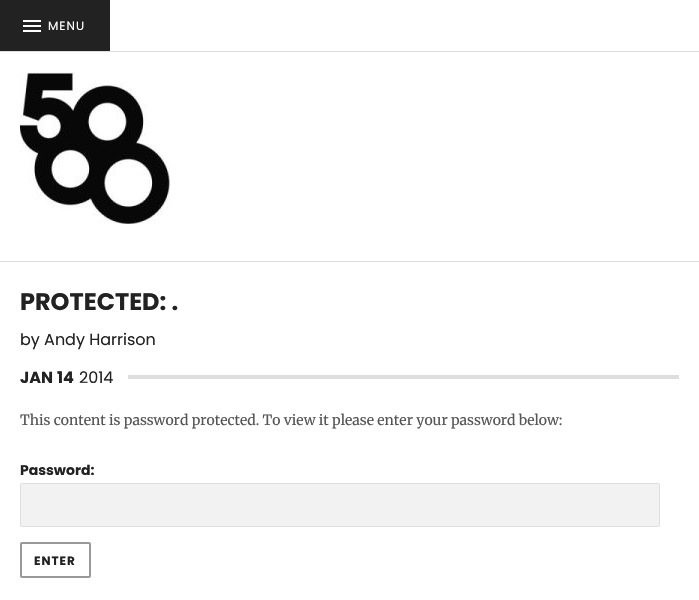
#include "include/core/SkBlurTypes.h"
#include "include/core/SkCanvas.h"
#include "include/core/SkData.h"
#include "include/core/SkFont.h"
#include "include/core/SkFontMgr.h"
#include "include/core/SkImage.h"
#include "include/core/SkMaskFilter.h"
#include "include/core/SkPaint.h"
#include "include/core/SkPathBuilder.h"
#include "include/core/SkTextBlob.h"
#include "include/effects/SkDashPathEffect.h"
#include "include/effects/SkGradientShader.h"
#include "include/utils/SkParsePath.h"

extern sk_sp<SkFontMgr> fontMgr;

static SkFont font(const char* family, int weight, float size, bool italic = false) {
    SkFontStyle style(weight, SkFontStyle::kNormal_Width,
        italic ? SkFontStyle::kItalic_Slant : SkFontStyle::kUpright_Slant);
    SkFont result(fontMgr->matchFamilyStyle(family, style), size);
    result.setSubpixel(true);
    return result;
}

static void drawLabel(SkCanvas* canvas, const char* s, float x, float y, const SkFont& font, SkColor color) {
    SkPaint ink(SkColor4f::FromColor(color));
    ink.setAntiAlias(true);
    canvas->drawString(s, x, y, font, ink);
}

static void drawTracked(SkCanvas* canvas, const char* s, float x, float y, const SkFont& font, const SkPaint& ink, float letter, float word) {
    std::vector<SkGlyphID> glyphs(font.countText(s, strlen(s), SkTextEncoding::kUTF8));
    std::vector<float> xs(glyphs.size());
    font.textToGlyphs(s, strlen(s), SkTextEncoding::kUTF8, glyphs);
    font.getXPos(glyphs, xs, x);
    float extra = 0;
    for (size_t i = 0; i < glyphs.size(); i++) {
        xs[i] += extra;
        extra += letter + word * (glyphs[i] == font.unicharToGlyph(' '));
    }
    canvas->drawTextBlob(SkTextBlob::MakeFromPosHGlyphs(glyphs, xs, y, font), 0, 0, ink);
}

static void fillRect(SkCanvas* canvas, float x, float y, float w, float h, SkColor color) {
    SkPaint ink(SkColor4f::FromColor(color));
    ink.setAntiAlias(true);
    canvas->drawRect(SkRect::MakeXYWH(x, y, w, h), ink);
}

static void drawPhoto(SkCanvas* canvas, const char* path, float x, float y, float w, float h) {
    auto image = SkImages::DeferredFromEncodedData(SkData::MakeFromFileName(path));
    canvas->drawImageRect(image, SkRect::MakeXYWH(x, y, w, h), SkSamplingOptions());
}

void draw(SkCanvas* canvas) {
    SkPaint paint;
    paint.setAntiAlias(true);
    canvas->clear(0xFFFFFFFF);
    fillRect(canvas, 0, 51, 699, 1, 0xFFDEDEDE);
    fillRect(canvas, 0, 0, 110, 51, 0xFF222222);
    drawPhoto(canvas, "assets/img1.png", 23, 20, 18, 12);
    SkFont font1 = font("Poppins", 400, 12);
    paint.setColor(0xFFFFFFFF);
    drawTracked(canvas, "MENU", 48, 30, font1, paint, 1, 0);
    fillRect(canvas, 0, 261, 699, 1, 0xFFDEDEDE);
    drawPhoto(canvas, "assets/img2.png", 20, 72, 150, 152);
    fillRect(canvas, 128, 375, 551, 4, 0xFFDEDEDE);
    SkFont font2 = font("Poppins", 700, 24);
    drawLabel(canvas, "PROTECTED: .", 20, 310, font2, 0xFF222222);
    SkFont font3 = font("Poppins", 400, 16);
    drawLabel(canvas, "by Andy Harrison", 20, 345, font3, 0xFF222222);
    SkFont font4 = font("Poppins", 700, 16);
    drawLabel(canvas, "JAN", 20, 383, font4, 0xFF222222);
    drawLabel(canvas, "14", 57, 383, font4, 0xFF222222);
    drawLabel(canvas, "2014", 79, 383, font3, 0xFF222222);
    SkFont font5 = font("Merriweather", 400, 14);
    drawLabel(canvas, "This content is password protected. To view it please enter your password below:", 20, 425, font5, 0xFF555555);
    SkFont font6 = font("Poppins", 700, 14);
    drawLabel(canvas, "Password:", 20, 475, font6, 0xFF222222);
    paint.setColor(0xFFF2F2F2);
    canvas->drawRoundRect(SkRect::MakeXYWH(20.5f, 483.5f, 639, 43), 1.5f, 1.5f, paint);
    paint.setStroke(true);
    paint.setStrokeWidth(1);
    paint.setColor(0xFFDEDEDE);
    canvas->drawRoundRect(SkRect::MakeXYWH(20.5f, 483.5f, 639, 43), 1.5f, 1.5f, paint);
    paint.setStrokeWidth(2);
    paint.setColor(0xFF999999);
    canvas->drawRoundRect(SkRect::MakeXYWH(21, 543, 69, 34), 1, 1, paint);
    SkFont font7 = font("Poppins", 700, 12);
    paint.setStroke(false);
    paint.setColor(0xFF222222);
    drawTracked(canvas, "ENTER", 34, 565, font7, paint, 1, 0);
}
